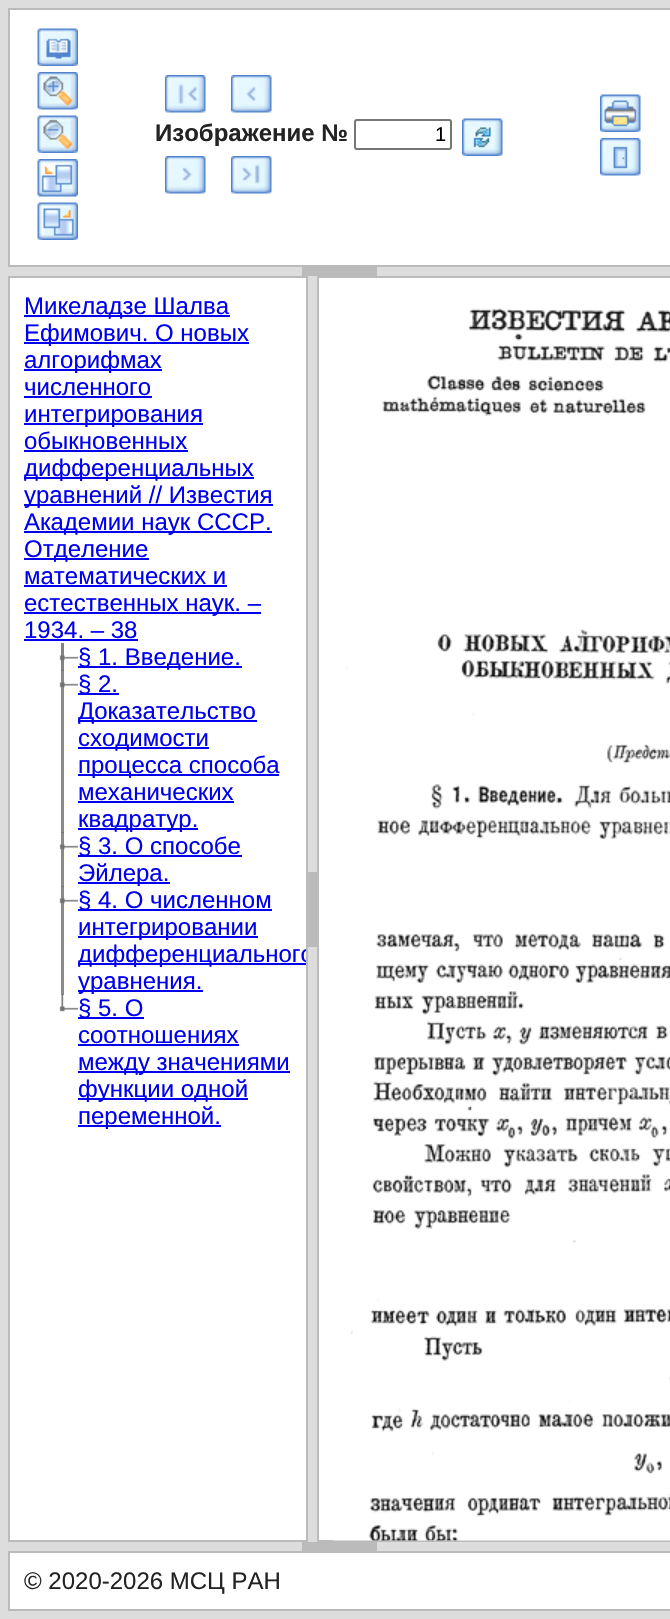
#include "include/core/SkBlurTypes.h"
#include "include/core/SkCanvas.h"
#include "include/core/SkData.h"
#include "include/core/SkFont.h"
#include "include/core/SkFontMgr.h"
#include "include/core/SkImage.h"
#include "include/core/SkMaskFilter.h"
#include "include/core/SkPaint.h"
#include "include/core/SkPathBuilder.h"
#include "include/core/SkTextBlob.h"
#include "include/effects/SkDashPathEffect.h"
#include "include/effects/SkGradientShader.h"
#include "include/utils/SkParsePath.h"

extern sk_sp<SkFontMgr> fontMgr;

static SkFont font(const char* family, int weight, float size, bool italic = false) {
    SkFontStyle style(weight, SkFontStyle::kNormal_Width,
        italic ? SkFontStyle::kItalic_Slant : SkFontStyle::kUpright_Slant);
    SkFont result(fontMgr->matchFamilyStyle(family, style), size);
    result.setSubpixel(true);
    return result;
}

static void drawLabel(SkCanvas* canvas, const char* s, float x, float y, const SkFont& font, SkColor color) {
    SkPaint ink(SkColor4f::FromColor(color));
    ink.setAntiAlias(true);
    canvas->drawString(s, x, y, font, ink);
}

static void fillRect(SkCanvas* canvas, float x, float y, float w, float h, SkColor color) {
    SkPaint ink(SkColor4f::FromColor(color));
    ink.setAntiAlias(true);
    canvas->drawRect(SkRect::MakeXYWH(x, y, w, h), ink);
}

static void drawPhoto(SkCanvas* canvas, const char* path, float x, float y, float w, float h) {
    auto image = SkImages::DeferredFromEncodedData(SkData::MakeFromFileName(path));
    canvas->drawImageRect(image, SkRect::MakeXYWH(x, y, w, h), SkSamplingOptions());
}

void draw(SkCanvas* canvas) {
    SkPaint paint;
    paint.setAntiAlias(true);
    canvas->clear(0xFFDDDDDD);
    paint.setColor(0xFFFFFFFF);
    canvas->drawRect(SkRect::MakeXYWH(9, 9, 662, 257), paint);
    paint.setStroke(true);
    paint.setStrokeWidth(2);
    paint.setColor(0xFFBBBBBB);
    canvas->drawRect(SkRect::MakeXYWH(9, 9, 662, 257), paint);
    drawPhoto(canvas, "assets/img1.png", 37, 28, 41, 38);
    drawPhoto(canvas, "assets/img2.png", 37, 72, 41, 38);
    drawPhoto(canvas, "assets/img3.png", 37, 115, 41, 38);
    drawPhoto(canvas, "assets/img4.png", 37, 159, 41, 38);
    drawPhoto(canvas, "assets/img5.png", 37, 202, 41, 38);
    drawPhoto(canvas, "assets/img6.png", 165, 75, 41, 38);
    drawPhoto(canvas, "assets/img7.png", 231, 75, 41, 38);
    SkFont font1 = font("Liberation Sans", 700, 24);
    drawLabel(canvas, "Изображение №", 155, 141, font1, 0xFF232323);
    paint.setColor(0xFF767676);
    canvas->drawRoundRect(SkRect::MakeXYWH(355, 120, 96, 29), 2, 2, paint);
    SkFont font2 = font("Liberation Sans", 400, 20);
    drawLabel(canvas, "1", 435, 141, font2, 0xFF000000);
    drawPhoto(canvas, "assets/img8.png", 462, 118, 41, 38);
    drawPhoto(canvas, "assets/img9.png", 165, 156, 41, 38);
    drawPhoto(canvas, "assets/img10.png", 231, 156, 41, 38);
    drawPhoto(canvas, "assets/img11.png", 600, 94, 41, 38);
    drawPhoto(canvas, "assets/img12.png", 600, 138, 41, 38);
    fillRect(canvas, 302, 267, 75, 9, 0xFFBBBBBB);
    fillRect(canvas, 10, 278, 296, 1262, 0xFFFFFFFF);
    fillRect(canvas, 61, 670, 3, 325, 0xFF8A8A8A);
    fillRect(canvas, 61, 886, 3, 1, 0xFF767676);
    fillRect(canvas, 61, 832, 3, 1, 0xFF767676);
    paint.setColor(0xFFBBBBBB);
    canvas->drawRect(SkRect::MakeXYWH(9, 277, 298, 1264), paint);
    fillRect(canvas, 24, 315, 206, 2, 0xFF0000EE);
    SkFont font3 = font("Liberation Sans", 400, 24);
    drawLabel(canvas, "Микеладзе Шалва", 24, 314, font3, 0xFF0000EE);
    fillRect(canvas, 24, 342, 225, 2, 0xFF0000EE);
    drawLabel(canvas, "Ефимович. О новых", 24, 341, font3, 0xFF0000EE);
    fillRect(canvas, 24, 369, 138, 2, 0xFF0000EE);
    drawLabel(canvas, "алгорифмах", 24, 368, font3, 0xFF0000EE);
    drawLabel(canvas, "численного", 24, 395, font3, 0xFF0000EE);
    fillRect(canvas, 24, 396, 128, 2, 0xFF0000EE);
    fillRect(canvas, 24, 423, 179, 2, 0xFF0000EE);
    drawLabel(canvas, "интегрирования", 24, 422, font3, 0xFF0000EE);
    drawLabel(canvas, "обыкновенных", 24, 449, font3, 0xFF0000EE);
    fillRect(canvas, 24, 450, 164, 2, 0xFF0000EE);
    fillRect(canvas, 24, 477, 230, 2, 0xFF0000EE);
    drawLabel(canvas, "дифференциальных", 24, 476, font3, 0xFF0000EE);
    fillRect(canvas, 24, 504, 249, 2, 0xFF0000EE);
    drawLabel(canvas, "уравнений // Известия", 24, 503, font3, 0xFF0000EE);
    fillRect(canvas, 24, 531, 248, 2, 0xFF0000EE);
    drawLabel(canvas, "Академии наук СССР.", 24, 530, font3, 0xFF0000EE);
    fillRect(canvas, 24, 558, 125, 2, 0xFF0000EE);
    drawLabel(canvas, "Отделение", 24, 557, font3, 0xFF0000EE);
    drawLabel(canvas, "математических и", 24, 584, font3, 0xFF0000EE);
    fillRect(canvas, 24, 585, 203, 2, 0xFF0000EE);
    fillRect(canvas, 24, 612, 237, 2, 0xFF0000EE);
    drawLabel(canvas, "естественных наук. –", 24, 611, font3, 0xFF0000EE);
    drawLabel(canvas, "1934. – 38", 24, 638, font3, 0xFF0000EE);
    fillRect(canvas, 24, 639, 114, 2, 0xFF0000EE);
    fillRect(canvas, 61, 643, 3, 28, 0xFF838383);
    fillRect(canvas, 61, 670, 3, 1, 0xFF757575);
    drawPhoto(canvas, "assets/img13.png", 59, 655, 19, 6);
    fillRect(canvas, 78, 666, 164, 2, 0xFF0000EE);
    drawLabel(canvas, "§ 1. Введение.", 78, 665, font3, 0xFF0000EE);
    drawPhoto(canvas, "assets/img14.png", 59, 682, 19, 6);
    fillRect(canvas, 78, 693, 41, 2, 0xFF0000EE);
    drawLabel(canvas, "§ 2.", 78, 692, font3, 0xFF0000EE);
    fillRect(canvas, 78, 720, 179, 2, 0xFF0000EE);
    drawLabel(canvas, "Доказательство", 78, 719, font3, 0xFF0000EE);
    fillRect(canvas, 78, 747, 131, 2, 0xFF0000EE);
    drawLabel(canvas, "сходимости", 78, 746, font3, 0xFF0000EE);
    fillRect(canvas, 78, 774, 201, 2, 0xFF0000EE);
    drawLabel(canvas, "процесса способа", 78, 773, font3, 0xFF0000EE);
    drawLabel(canvas, "механических", 78, 800, font3, 0xFF0000EE);
    fillRect(canvas, 78, 801, 156, 2, 0xFF0000EE);
    fillRect(canvas, 78, 828, 120, 2, 0xFF0000EE);
    drawLabel(canvas, "квадратур.", 78, 827, font3, 0xFF0000EE);
    drawPhoto(canvas, "assets/img14.png", 59, 844, 19, 6);
    fillRect(canvas, 78, 855, 164, 2, 0xFF0000EE);
    drawLabel(canvas, "§ 3. О способе", 78, 854, font3, 0xFF0000EE);
    fillRect(canvas, 78, 882, 92, 2, 0xFF0000EE);
    drawLabel(canvas, "Эйлера.", 78, 881, font3, 0xFF0000EE);
    drawPhoto(canvas, "assets/img14.png", 59, 898, 19, 6);
    fillRect(canvas, 78, 909, 194, 2, 0xFF0000EE);
    drawLabel(canvas, "§ 4. О численном", 78, 908, font3, 0xFF0000EE);
    fillRect(canvas, 78, 936, 180, 2, 0xFF0000EE);
    drawLabel(canvas, "интегрировании", 78, 935, font3, 0xFF0000EE);
    fillRect(canvas, 78, 963, 228, 2, 0xFF0000EE);
    canvas->save();
    canvas->clipRect(SkRect::MakeXYWH(9, 278, 297, 1263));
    drawLabel(canvas, "дифференциального", 78, 962, font3, 0xFF0000EE);
    canvas->restore();
    fillRect(canvas, 78, 990, 125, 2, 0xFF0000EE);
    drawLabel(canvas, "уравнения.", 78, 989, font3, 0xFF0000EE);
    drawPhoto(canvas, "assets/img15.png", 61, 994, 3, 13);
    drawPhoto(canvas, "assets/img16.png", 59, 1006, 19, 6);
    fillRect(canvas, 78, 1017, 66, 2, 0xFF0000EE);
    drawLabel(canvas, "§ 5. О", 78, 1016, font3, 0xFF0000EE);
    drawLabel(canvas, "соотношениях", 78, 1043, font3, 0xFF0000EE);
    fillRect(canvas, 78, 1044, 161, 2, 0xFF0000EE);
    fillRect(canvas, 78, 1071, 212, 2, 0xFF0000EE);
    drawLabel(canvas, "между значениями", 78, 1070, font3, 0xFF0000EE);
    fillRect(canvas, 78, 1098, 170, 2, 0xFF0000EE);
    drawLabel(canvas, "функции одной", 78, 1097, font3, 0xFF0000EE);
    fillRect(canvas, 78, 1125, 143, 2, 0xFF0000EE);
    drawLabel(canvas, "переменной.", 78, 1124, font3, 0xFF0000EE);
    fillRect(canvas, 308, 872, 9, 75, 0xFFBBBBBB);
    paint.setStroke(false);
    paint.setColor(0xFFFFFFFF);
    canvas->drawRect(SkRect::MakeXYWH(318, 277, 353, 1264), paint);
    paint.setStroke(true);
    paint.setColor(0xFFBBBBBB);
    canvas->drawRect(SkRect::MakeXYWH(318, 277, 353, 1264), paint);
    drawPhoto(canvas, "assets/img17.png", 333, 308, 337, 1233);
    fillRect(canvas, 302, 1542, 75, 9, 0xFFBBBBBB);
    paint.setStroke(false);
    paint.setColor(0xFFFFFFFF);
    canvas->drawRect(SkRect::MakeXYWH(9, 1552, 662, 58), paint);
    paint.setStroke(true);
    paint.setColor(0xFFBBBBBB);
    canvas->drawRect(SkRect::MakeXYWH(9, 1552, 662, 58), paint);
    drawLabel(canvas, "© 2020-2026 МСЦ РАН", 24, 1589, font3, 0xFF232323);
}
